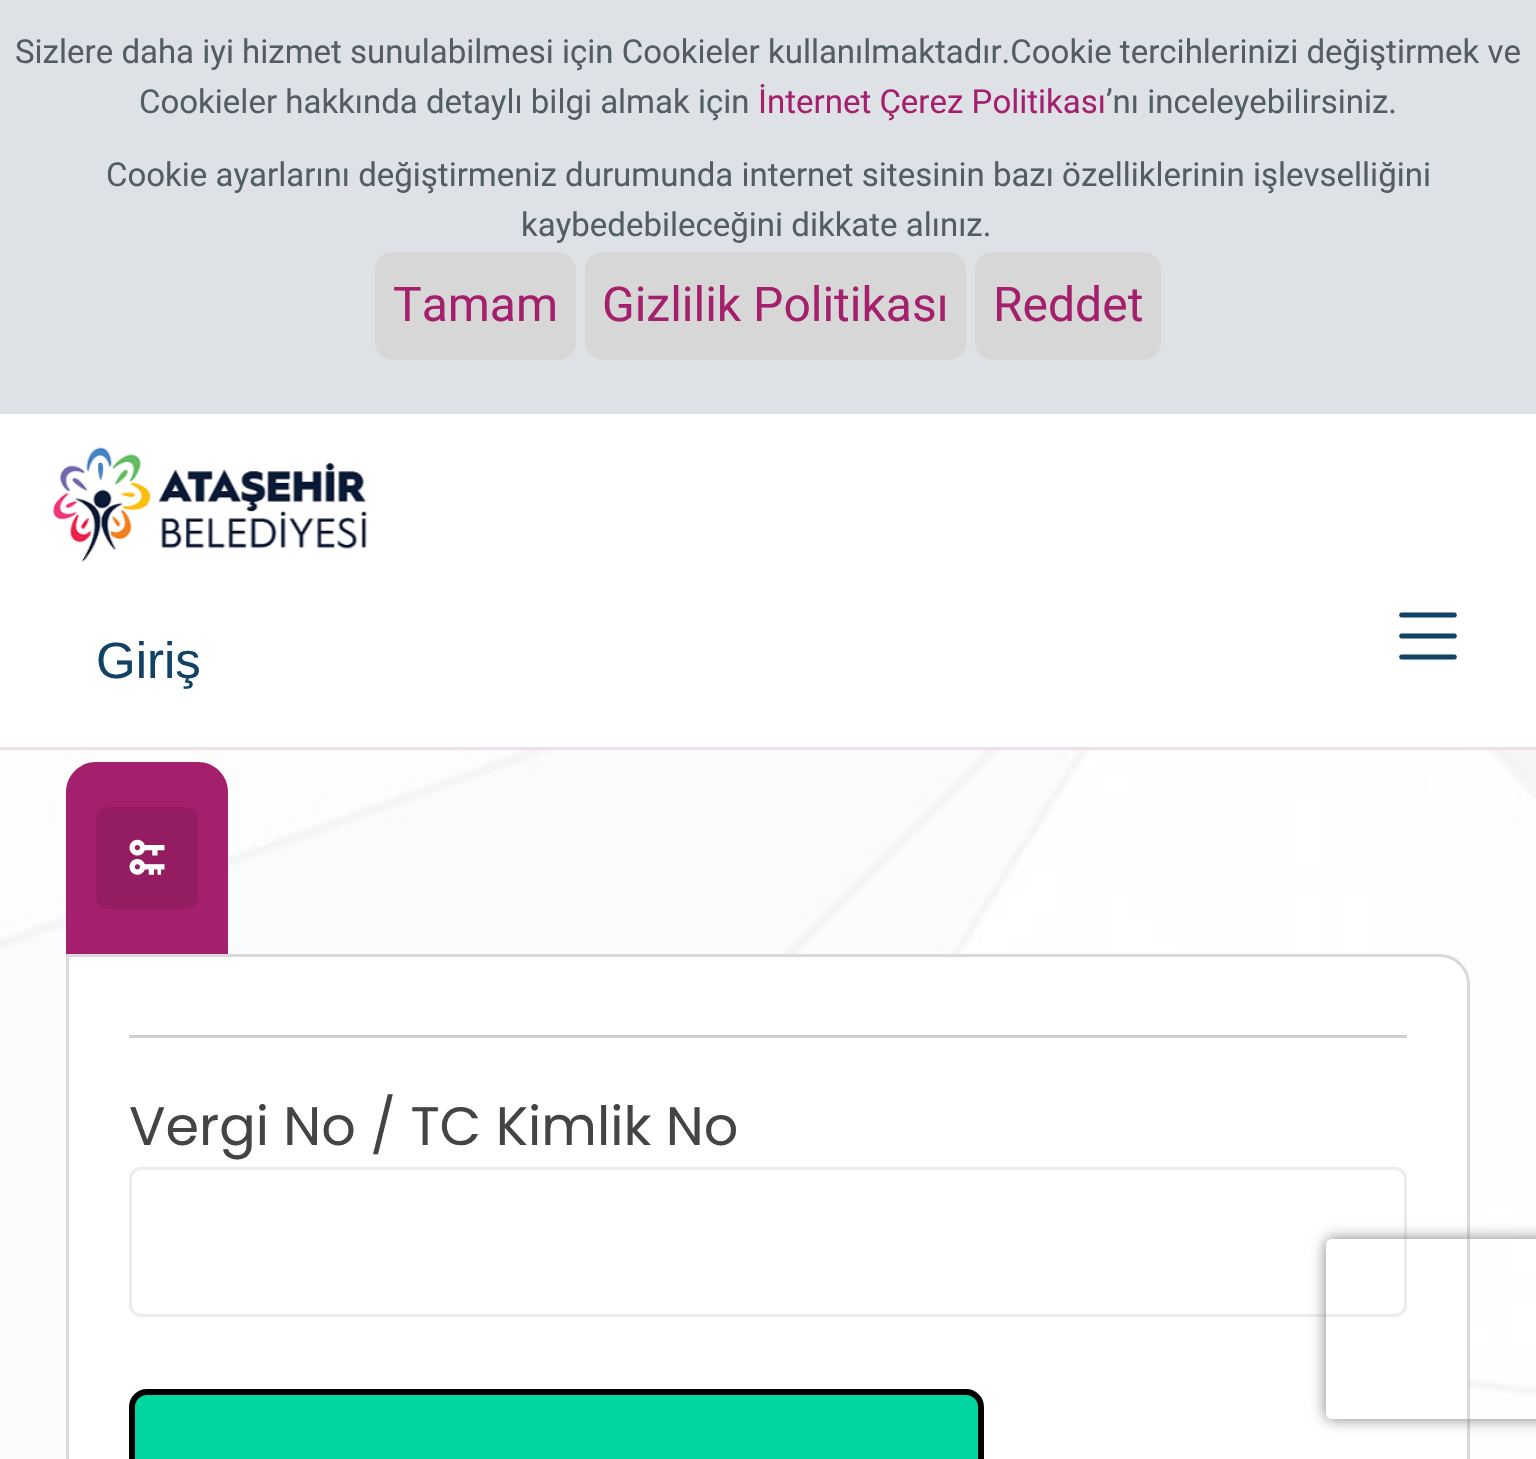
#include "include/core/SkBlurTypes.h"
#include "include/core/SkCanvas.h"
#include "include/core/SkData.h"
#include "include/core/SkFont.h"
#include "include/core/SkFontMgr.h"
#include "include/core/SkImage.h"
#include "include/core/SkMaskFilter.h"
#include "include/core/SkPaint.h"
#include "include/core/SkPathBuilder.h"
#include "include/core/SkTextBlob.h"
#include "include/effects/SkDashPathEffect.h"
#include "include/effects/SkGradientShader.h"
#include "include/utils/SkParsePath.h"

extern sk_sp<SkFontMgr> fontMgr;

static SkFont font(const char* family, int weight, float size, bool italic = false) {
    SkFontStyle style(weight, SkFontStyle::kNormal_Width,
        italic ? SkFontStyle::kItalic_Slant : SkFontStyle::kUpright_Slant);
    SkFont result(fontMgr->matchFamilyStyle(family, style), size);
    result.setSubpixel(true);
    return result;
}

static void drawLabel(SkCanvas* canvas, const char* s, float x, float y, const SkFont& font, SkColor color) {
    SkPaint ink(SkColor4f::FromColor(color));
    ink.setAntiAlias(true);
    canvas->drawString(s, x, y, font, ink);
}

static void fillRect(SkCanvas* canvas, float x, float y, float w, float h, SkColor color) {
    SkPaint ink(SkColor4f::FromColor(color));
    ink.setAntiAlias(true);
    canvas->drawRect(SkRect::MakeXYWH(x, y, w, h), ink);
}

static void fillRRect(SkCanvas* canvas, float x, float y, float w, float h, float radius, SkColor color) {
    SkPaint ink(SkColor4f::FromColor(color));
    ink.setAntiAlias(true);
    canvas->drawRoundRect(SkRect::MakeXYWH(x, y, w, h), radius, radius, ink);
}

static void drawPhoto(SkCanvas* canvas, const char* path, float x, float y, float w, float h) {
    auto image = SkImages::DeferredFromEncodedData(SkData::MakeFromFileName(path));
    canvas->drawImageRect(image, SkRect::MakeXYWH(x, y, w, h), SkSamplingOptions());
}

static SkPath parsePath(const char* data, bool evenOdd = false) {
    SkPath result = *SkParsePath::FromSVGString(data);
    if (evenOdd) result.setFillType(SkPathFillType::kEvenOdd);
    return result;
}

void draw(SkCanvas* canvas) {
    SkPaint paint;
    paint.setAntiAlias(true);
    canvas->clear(0xFFFFFFFF);
    fillRect(canvas, 0, 0, 1536, 414, 0xFFDEE2E6);
    SkFont font1 = font("Roboto", 400, 33);
    drawLabel(canvas, "Sizlere daha iyi hizmet sunulabilmesi için Cookieler kullanılmaktadır.Cookie tercihlerinizi değiştirmek ve", 15, 63, font1, 0xFF525E64);
    drawLabel(canvas, "Cookieler hakkında detaylı bilgi almak için", 139, 113, font1, 0xFF525E64);
    drawLabel(canvas, "İnternet Çerez Politikası", 758, 113, font1, 0xFFA4206D);
    drawLabel(canvas, "’nı inceleyebilirsiniz.", 1106, 113, font1, 0xFF525E64);
    drawLabel(canvas, "Cookie ayarlarını değiştirmeniz durumunda internet sitesinin bazı özelliklerinin işlevselliğini", 106, 186, font1, 0xFF525E64);
    drawLabel(canvas, "kaybedebileceğini dikkate alınız.", 521, 236, font1, 0xFF525E64);
    fillRRect(canvas, 375, 252, 201, 108, 18, 0xFFD7D7D7);
    SkFont font2 = font("Roboto", 400, 48);
    drawLabel(canvas, "Tamam", 393, 321, font2, 0xFFA4206D);
    fillRRect(canvas, 585, 252, 381, 108, 18, 0xFFD7D7D7);
    drawLabel(canvas, "Gizlilik Politikası", 602, 321, font2, 0xFFA4206D);
    fillRRect(canvas, 975, 252, 186, 108, 18, 0xFFD7D7D7);
    drawLabel(canvas, "Reddet", 993, 321, font2, 0xFFA4206D);
    fillRect(canvas, 0, 747, 1536, 3, 0xFFF1DEE9);
    drawPhoto(canvas, "assets/img1.png", 52, 447, 316, 115);
    drawPhoto(canvas, "assets/img2.png", 1399, 612, 58, 48);
    SkFont font3 = font("Liberation Sans", 400, 51);
    drawLabel(canvas, "Giriş", 96, 678, font3, 0xFF124265);
    drawPhoto(canvas, "assets/img3.png", 0, 750, 1536, 709);
    paint.setColor(0xFFA4206D);
    canvas->drawPath(parsePath("M96 762H198C214.5 762 228 775.5 228 792V954H66V792C66 775.5 79.5 762 96 762Z"), paint);
    fillRRect(canvas, 96, 807, 102, 102, 12, 0xFF941D62);
    drawPhoto(canvas, "assets/img4.png", 129, 839, 36, 36);
    paint.setColor(0xFFFFFFFF);
    canvas->drawPath(parsePath("M67.5 955.5H1440C1455.5 955.5 1468.5 968.5 1468.5 984V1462C1468.5 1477.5 1455.5 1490.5 1440 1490.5H67.5Z"), paint);
    paint.setStroke(true);
    paint.setStrokeWidth(3);
    paint.setColor(0xFFD8D9D9);
    canvas->drawPath(parsePath("M67.5 955.5H1440C1455.5 955.5 1468.5 968.5 1468.5 984V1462C1468.5 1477.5 1455.5 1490.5 1440 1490.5H67.5Z"), paint);
    fillRect(canvas, 129, 1035, 1278, 3, 0xFFD0D0D0);
    SkFont font4 = font("Poppins", 400, 54);
    drawLabel(canvas, "Vergi No / TC Kimlik No", 129, 1145, font4, 0xFF444444);
    paint.setColor(0xFFECECEC);
    canvas->drawRoundRect(SkRect::MakeXYWH(130.5f, 1168.5f, 1275, 147), 10.5f, 10.5f, paint);
    paint.setStroke(false);
    paint.setColor(0xFF00D69F);
    canvas->drawRoundRect(SkRect::MakeXYWH(132, 1392, 849, 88), 15, 15, paint);
    paint.setStroke(true);
    paint.setStrokeWidth(6);
    paint.setColor(0xFF000000);
    canvas->drawRoundRect(SkRect::MakeXYWH(132, 1392, 849, 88), 15, 15, paint);
    canvas->save();
    canvas->clipPath(parsePath("M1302 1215H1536V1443H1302ZM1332 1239H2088C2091.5 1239 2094 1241.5 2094 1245V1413C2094 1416.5 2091.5 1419 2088 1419H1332C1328.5 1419 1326 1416.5 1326 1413V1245C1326 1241.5 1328.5 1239 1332 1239Z", true), true);
    paint.setStroke(false);
    paint.setColor(0xFF808080);
    paint.setMaskFilter(SkMaskFilter::MakeBlur(kNormal_SkBlurStyle, 7.5f));
    canvas->drawRoundRect(SkRect::MakeXYWH(1326, 1239, 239, 180), 6, 6, paint);
    paint.setMaskFilter(nullptr);
    canvas->restore();
}
